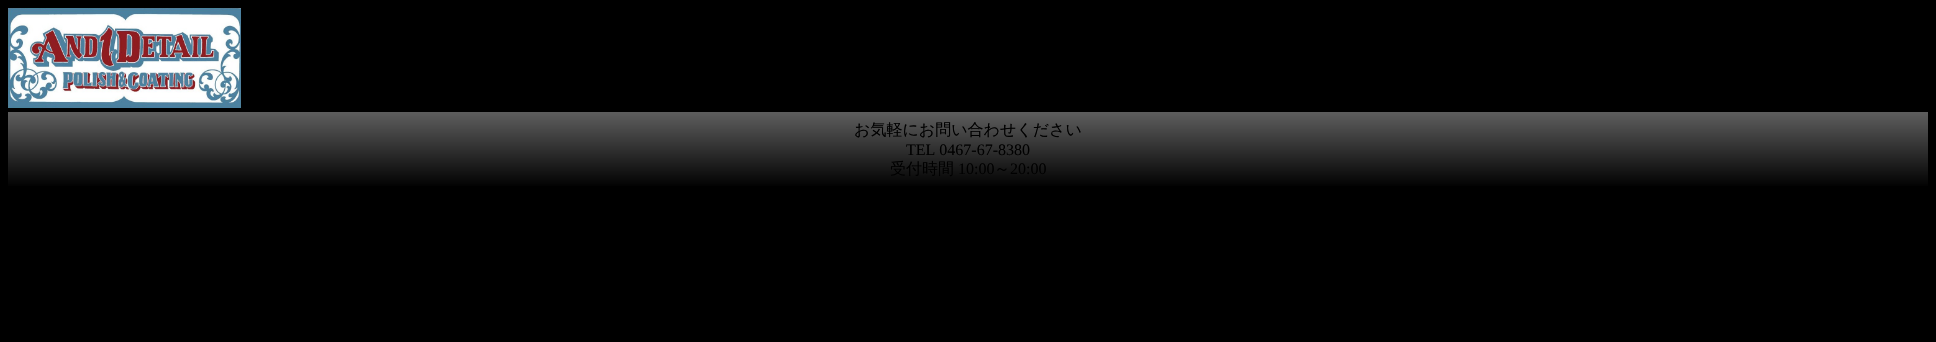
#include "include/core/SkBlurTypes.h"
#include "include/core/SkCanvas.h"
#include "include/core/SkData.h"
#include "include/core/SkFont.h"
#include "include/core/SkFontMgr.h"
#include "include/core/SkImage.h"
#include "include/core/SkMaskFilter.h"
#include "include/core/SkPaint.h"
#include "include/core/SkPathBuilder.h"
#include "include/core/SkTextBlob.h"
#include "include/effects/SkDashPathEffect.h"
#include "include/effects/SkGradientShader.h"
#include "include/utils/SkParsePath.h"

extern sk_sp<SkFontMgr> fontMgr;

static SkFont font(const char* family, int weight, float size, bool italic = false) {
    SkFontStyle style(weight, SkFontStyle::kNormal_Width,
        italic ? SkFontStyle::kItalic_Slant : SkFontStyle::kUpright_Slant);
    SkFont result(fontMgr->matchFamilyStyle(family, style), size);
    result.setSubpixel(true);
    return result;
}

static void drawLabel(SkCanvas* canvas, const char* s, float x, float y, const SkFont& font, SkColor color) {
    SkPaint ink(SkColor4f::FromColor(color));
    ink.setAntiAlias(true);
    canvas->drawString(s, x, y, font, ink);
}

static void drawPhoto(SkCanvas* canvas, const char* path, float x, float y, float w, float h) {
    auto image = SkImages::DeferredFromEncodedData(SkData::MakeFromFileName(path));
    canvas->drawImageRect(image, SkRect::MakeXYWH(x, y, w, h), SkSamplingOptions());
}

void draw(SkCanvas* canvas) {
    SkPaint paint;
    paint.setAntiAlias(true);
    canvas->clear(0xFF000000);
    drawPhoto(canvas, "assets/img1.png", 8, 8, 233, 100);
    {
        const SkColor colors[] = {0xFF5E5E5E, 0xFF000000};
        const float stops[] = {0, 1};
        const SkPoint ends[] = {{968, 112}, {968, 188}};
        paint.setShader(SkGradientShader::MakeLinear(ends, colors, stops, 2, SkTileMode::kClamp));
        paint.setAlpha(255);
    }
    canvas->drawRect(SkRect::MakeXYWH(8, 112, 1920, 74), paint);
    SkFont font1 = font("WenQuanYi Zen Hei", 500, 16);
    drawLabel(canvas, "お気軽にお問い合わせください", 854, 135, font1, 0xFF000000);
    SkFont font2 = font("Liberation Serif", 400, 16);
    drawLabel(canvas, "TEL 0467-67-8380", 906, 155, font2, 0xFF000000);
    drawLabel(canvas, "受付時間", 890, 174, font1, 0xFF000000);
    drawLabel(canvas, "10:00", 958, 174, font2, 0xFF000000);
    drawLabel(canvas, "～", 994, 174, font1, 0xFF000000);
    drawLabel(canvas, "20:00", 1010, 174, font2, 0xFF000000);
}
